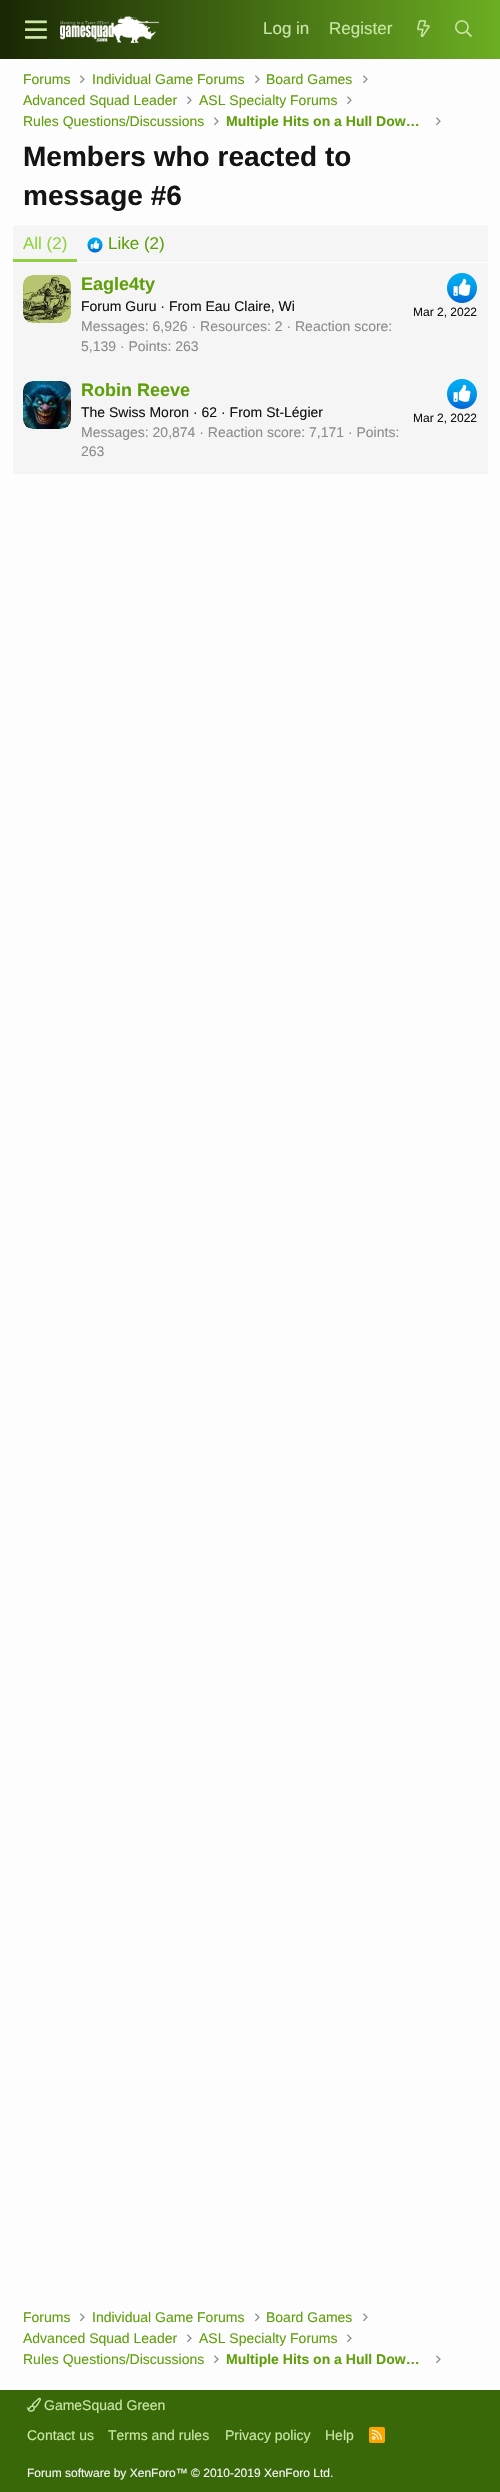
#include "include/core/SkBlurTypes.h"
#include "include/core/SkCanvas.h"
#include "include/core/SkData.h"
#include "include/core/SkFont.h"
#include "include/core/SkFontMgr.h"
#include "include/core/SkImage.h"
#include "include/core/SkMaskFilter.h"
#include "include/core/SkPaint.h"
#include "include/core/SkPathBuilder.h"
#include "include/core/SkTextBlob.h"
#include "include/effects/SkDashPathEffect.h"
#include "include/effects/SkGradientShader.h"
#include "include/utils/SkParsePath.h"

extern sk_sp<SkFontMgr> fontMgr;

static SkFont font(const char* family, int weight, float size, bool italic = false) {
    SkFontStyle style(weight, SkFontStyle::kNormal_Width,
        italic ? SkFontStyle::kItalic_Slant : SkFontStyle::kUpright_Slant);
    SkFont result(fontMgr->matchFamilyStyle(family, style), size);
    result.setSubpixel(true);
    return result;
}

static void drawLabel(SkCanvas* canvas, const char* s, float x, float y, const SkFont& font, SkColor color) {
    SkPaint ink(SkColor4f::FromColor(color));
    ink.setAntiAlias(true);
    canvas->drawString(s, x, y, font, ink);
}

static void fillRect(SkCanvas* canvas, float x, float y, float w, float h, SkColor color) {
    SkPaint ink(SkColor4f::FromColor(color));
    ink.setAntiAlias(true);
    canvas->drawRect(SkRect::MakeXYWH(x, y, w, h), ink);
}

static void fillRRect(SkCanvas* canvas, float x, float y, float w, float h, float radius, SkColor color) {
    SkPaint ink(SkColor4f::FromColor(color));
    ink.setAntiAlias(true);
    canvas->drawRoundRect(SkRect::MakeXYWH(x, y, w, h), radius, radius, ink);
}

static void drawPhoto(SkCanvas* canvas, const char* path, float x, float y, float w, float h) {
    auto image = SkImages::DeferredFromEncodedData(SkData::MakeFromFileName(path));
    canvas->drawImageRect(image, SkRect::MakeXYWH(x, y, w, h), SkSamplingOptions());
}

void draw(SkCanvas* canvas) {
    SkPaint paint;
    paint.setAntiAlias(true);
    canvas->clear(0xFFFDFDFD);
    {
        const SkColor colors[] = {0xFF192704, 0xFF6CAE23};
        const float stops[] = {0, 1};
        const SkPoint ends[] = {{0, 30}, {500, 29}};
        paint.setShader(SkGradientShader::MakeLinear(ends, colors, stops, 2, SkTileMode::kClamp));
        paint.setAlpha(255);
    }
    canvas->drawRect(SkRect::MakeXYWH(0, 0, 500, 59), paint);
    drawPhoto(canvas, "assets/img1.png", 25, 20, 22, 19);
    drawPhoto(canvas, "assets/img2.png", 60, 16, 99, 27);
    SkFont font1 = font("Liberation Sans", 400, 17);
    drawLabel(canvas, "Log in", 263, 34, font1, 0xFFC9E6A4);
    drawLabel(canvas, "Register", 329, 34, font1, 0xFFC9E6A4);
    drawPhoto(canvas, "assets/img3.png", 417, 20, 13, 18);
    drawPhoto(canvas, "assets/img4.png", 455, 20, 17, 18);
    SkFont font2 = font("Liberation Sans", 400, 14);
    drawLabel(canvas, "Forums", 23, 84, font2, 0xFF5F9F0B);
    drawPhoto(canvas, "assets/img5.png", 80, 75, 5, 9);
    drawLabel(canvas, "Individual Game Forums", 92, 84, font2, 0xFF5F9F0B);
    drawPhoto(canvas, "assets/img5.png", 255, 75, 5, 9);
    drawLabel(canvas, "Board Games", 266, 84, font2, 0xFF5F9F0B);
    drawPhoto(canvas, "assets/img5.png", 363, 75, 5, 9);
    drawLabel(canvas, "Advanced Squad Leader", 23, 105, font2, 0xFF5F9F0B);
    drawPhoto(canvas, "assets/img5.png", 187, 96, 5, 9);
    drawLabel(canvas, "ASL Specialty Forums", 199, 105, font2, 0xFF5F9F0B);
    drawPhoto(canvas, "assets/img5.png", 347, 96, 5, 9);
    drawLabel(canvas, "Rules Questions/Discussions", 23, 126, font2, 0xFF5F9F0B);
    drawPhoto(canvas, "assets/img5.png", 214, 117, 5, 9);
    SkFont font3 = font("Liberation Sans", 700, 14);
    drawLabel(canvas, "Multiple Hits on a Hull Dow…", 226, 126, font3, 0xFF5F9F0B);
    drawPhoto(canvas, "assets/img5.png", 436, 117, 5, 9);
    SkFont font4 = font("Liberation Sans", 700, 28);
    drawLabel(canvas, "Members who reacted to", 23, 166, font4, 0xFF141414);
    drawLabel(canvas, "message #6", 23, 205, font4, 0xFF141414);
    fillRect(canvas, 13, 226, 475, 248, 0xFFF5F5F5);
    fillRect(canvas, 13, 225, 475, 1, 0xFFF7F7F7);
    fillRect(canvas, 13, 262, 475, 1, 0xFFFFFFFF);
    fillRect(canvas, 13, 259, 64, 3, 0xFF8FD13F);
    drawLabel(canvas, "All (2)", 23, 249, font1, 0xFF8FD13F);
    drawPhoto(canvas, "assets/img6.png", 87, 237, 16, 16);
    drawLabel(canvas, "Like (2)", 108, 249, font1, 0xFF5F9F0B);
    drawPhoto(canvas, "assets/img7.png", 23, 275, 48, 48);
    SkFont font5 = font("Liberation Sans", 700, 18);
    drawLabel(canvas, "Eagle4ty", 81, 290, font5, 0xFF5F9F0B);
    drawLabel(canvas, "Forum Guru · From Eau Claire, Wi", 81, 311, font2, 0xFF141414);
    drawPhoto(canvas, "assets/img8.png", 447, 273, 30, 30);
    SkFont font6 = font("Liberation Sans", 400, 12);
    drawLabel(canvas, "Mar 2, 2022", 413, 316, font6, 0xFF141414);
    drawLabel(canvas, "Messages: 6,926 · Resources: 2 · Reaction score:", 81, 331, font2, 0xFF8C8C8C);
    drawLabel(canvas, "5,139 · Points: 263", 81, 351, font2, 0xFF8C8C8C);
    drawPhoto(canvas, "assets/img9.png", 23, 381, 48, 48);
    drawLabel(canvas, "Robin Reeve", 81, 396, font5, 0xFF5F9F0B);
    drawLabel(canvas, "The Swiss Moron · 62 · From St-Légier", 81, 417, font2, 0xFF141414);
    drawPhoto(canvas, "assets/img8.png", 447, 379, 30, 30);
    drawLabel(canvas, "Mar 2, 2022", 413, 422, font6, 0xFF141414);
    drawLabel(canvas, "Messages: 20,874 · Reaction score: 7,171 · Points:", 81, 437, font2, 0xFF8C8C8C);
    drawLabel(canvas, "263", 81, 456, font2, 0xFF8C8C8C);
    drawLabel(canvas, "Forums", 23, 2322, font2, 0xFF5F9F0B);
    drawPhoto(canvas, "assets/img5.png", 80, 2313, 5, 9);
    drawLabel(canvas, "Individual Game Forums", 92, 2322, font2, 0xFF5F9F0B);
    drawPhoto(canvas, "assets/img5.png", 255, 2313, 5, 9);
    drawLabel(canvas, "Board Games", 266, 2322, font2, 0xFF5F9F0B);
    drawPhoto(canvas, "assets/img5.png", 363, 2313, 5, 9);
    drawLabel(canvas, "Advanced Squad Leader", 23, 2343, font2, 0xFF5F9F0B);
    drawPhoto(canvas, "assets/img5.png", 187, 2334, 5, 9);
    drawLabel(canvas, "ASL Specialty Forums", 199, 2343, font2, 0xFF5F9F0B);
    drawPhoto(canvas, "assets/img5.png", 347, 2334, 5, 9);
    drawLabel(canvas, "Rules Questions/Discussions", 23, 2364, font2, 0xFF5F9F0B);
    drawPhoto(canvas, "assets/img5.png", 214, 2355, 5, 9);
    drawLabel(canvas, "Multiple Hits on a Hull Dow…", 226, 2364, font3, 0xFF5F9F0B);
    drawPhoto(canvas, "assets/img5.png", 436, 2355, 5, 9);
    fillRect(canvas, 0, 2390, 500, 102, 0xFF396809);
    drawPhoto(canvas, "assets/img10.png", 27, 2397, 14, 15);
    drawLabel(canvas, "GameSquad Green", 44, 2410, font2, 0xFFC9E6A4);
    drawLabel(canvas, "Contact us", 27, 2440, font2, 0xFFC9E6A4);
    drawLabel(canvas, "Terms and rules", 108, 2440, font2, 0xFFC9E6A4);
    drawLabel(canvas, "Privacy policy", 225, 2440, font2, 0xFFC9E6A4);
    drawLabel(canvas, "Help", 325, 2440, font2, 0xFFC9E6A4);
    fillRRect(canvas, 369, 2427, 16, 16, 2, 0xFFFFA500);
    drawPhoto(canvas, "assets/img11.png", 372, 2429, 10, 11);
    drawLabel(canvas, "Forum software by XenForo™ © 2010-2019 XenForo Ltd.", 27, 2477, font6, 0xFFF6F6F6);
}
